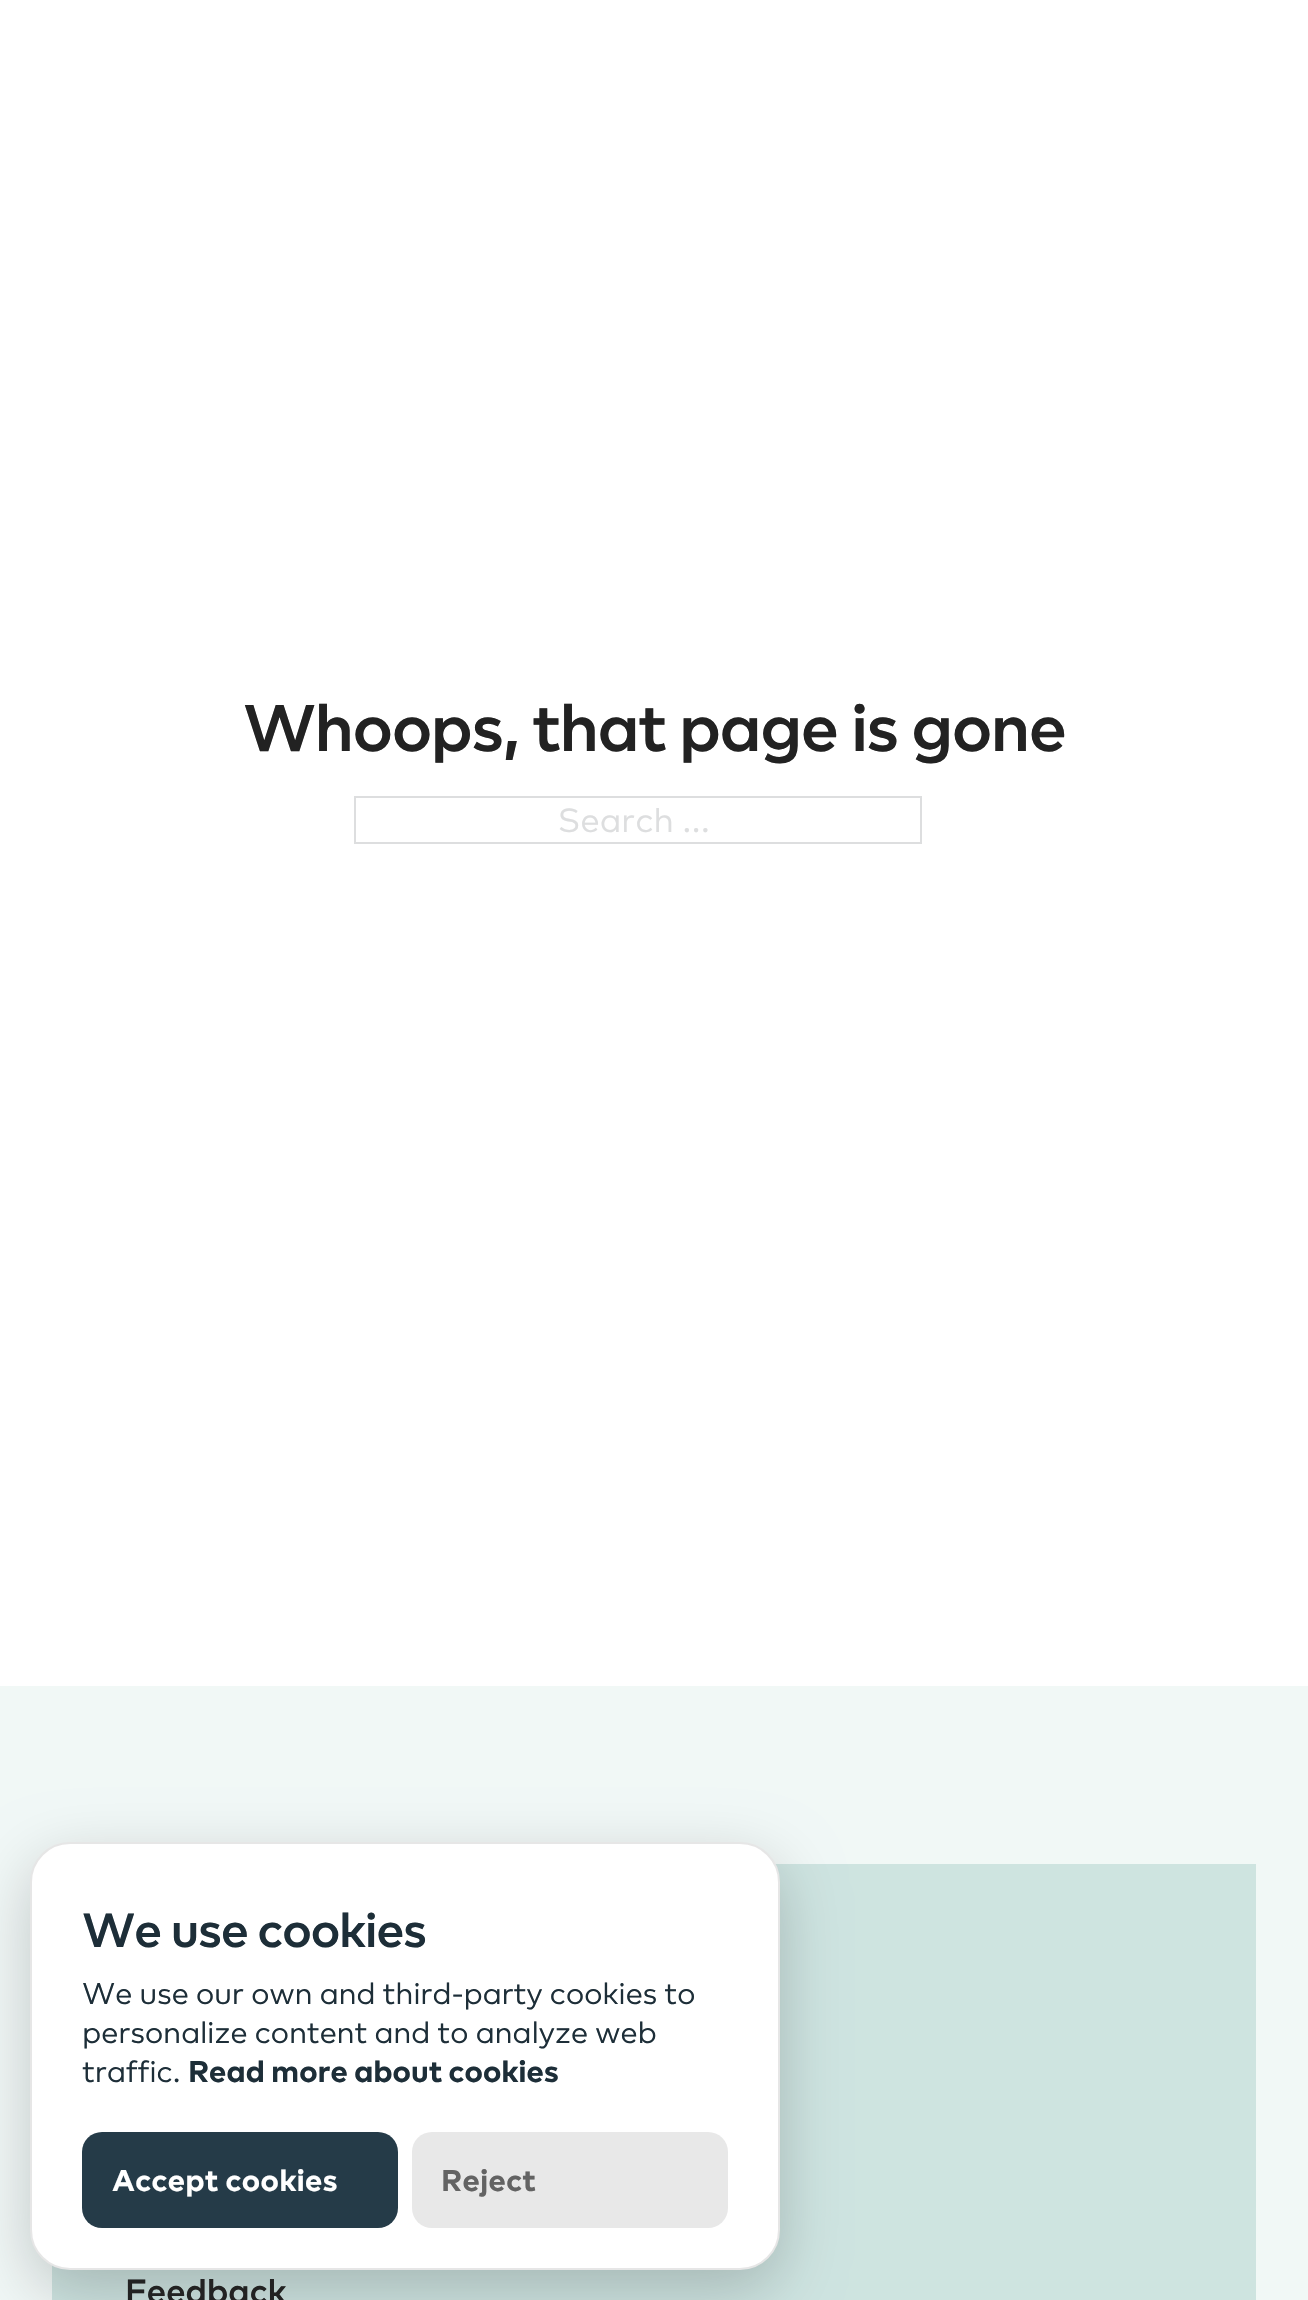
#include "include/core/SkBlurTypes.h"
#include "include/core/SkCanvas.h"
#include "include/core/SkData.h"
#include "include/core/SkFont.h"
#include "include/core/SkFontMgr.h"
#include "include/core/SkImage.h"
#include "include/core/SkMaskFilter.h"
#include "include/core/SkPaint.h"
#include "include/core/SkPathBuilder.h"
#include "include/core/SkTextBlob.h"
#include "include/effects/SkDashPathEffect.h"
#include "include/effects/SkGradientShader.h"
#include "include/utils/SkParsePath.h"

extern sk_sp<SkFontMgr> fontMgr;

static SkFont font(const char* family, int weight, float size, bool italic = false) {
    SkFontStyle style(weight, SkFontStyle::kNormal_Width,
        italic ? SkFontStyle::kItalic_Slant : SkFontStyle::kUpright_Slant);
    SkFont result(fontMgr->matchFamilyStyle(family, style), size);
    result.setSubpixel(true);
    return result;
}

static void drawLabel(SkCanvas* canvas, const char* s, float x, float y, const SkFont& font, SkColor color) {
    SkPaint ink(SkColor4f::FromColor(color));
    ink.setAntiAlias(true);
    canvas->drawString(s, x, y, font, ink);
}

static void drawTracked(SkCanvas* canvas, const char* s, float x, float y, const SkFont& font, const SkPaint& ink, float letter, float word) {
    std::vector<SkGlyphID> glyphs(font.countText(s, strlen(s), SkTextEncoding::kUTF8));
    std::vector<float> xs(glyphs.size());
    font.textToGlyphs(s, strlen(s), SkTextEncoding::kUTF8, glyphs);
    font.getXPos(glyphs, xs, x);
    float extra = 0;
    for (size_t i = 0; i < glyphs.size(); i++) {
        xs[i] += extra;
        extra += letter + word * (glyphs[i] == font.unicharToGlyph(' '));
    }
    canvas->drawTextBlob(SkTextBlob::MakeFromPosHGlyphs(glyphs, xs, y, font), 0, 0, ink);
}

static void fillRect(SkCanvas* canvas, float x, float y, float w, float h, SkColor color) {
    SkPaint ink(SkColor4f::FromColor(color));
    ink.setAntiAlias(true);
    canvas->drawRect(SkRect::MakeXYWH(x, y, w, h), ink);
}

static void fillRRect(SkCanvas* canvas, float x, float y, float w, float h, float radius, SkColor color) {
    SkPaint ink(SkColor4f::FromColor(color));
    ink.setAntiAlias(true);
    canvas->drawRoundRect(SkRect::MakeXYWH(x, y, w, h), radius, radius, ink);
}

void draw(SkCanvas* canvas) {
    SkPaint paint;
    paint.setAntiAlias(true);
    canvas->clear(0xFFFFFFFF);
    SkFont font1 = font("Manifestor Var", 600, 65.75f);
    paint.setColor(0xFF222222);
    drawTracked(canvas, "Whoops, that page is gone", 243, 751, font1, paint, -2, 0);
    paint.setStroke(true);
    paint.setStrokeWidth(2);
    paint.setColor(0xFFDDDEDF);
    canvas->drawRect(SkRect::MakeXYWH(355, 797, 566, 46), paint);
    SkFont font2 = font("Manifestor Var", 400, 33.5f);
    drawLabel(canvas, "Search ...", 558, 832, font2, 0xFFDDDEDF);
    fillRect(canvas, 0, 1686, 1308, 614, 0xFFF1F8F6);
    fillRect(canvas, 52, 1864, 1204, 436, 0xFFCEE4E0);
    paint.setStroke(false);
    paint.setColor(0x33020203);
    paint.setMaskFilter(SkMaskFilter::MakeBlur(kNormal_SkBlurStyle, 31.5f));
    canvas->drawRoundRect(SkRect::MakeXYWH(30, 1862, 750, 428), 40, 40, paint);
    paint.setMaskFilter(nullptr);
    paint.setColor(0xFFFFFFFF);
    canvas->drawRoundRect(SkRect::MakeXYWH(31, 1843, 748, 426), 39, 39, paint);
    paint.setStroke(true);
    paint.setColor(0xFFE6E6E6);
    canvas->drawRoundRect(SkRect::MakeXYWH(31, 1843, 748, 426), 39, 39, paint);
    SkFont font3 = font("Manifestor Var", 600, 48);
    paint.setStroke(false);
    paint.setColor(0xFF1D2E38);
    drawTracked(canvas, "We use cookies", 82, 1947, font3, paint, -1.5f, 0);
    SkFont font4 = font("Manifestor Var", 400, 30);
    drawTracked(canvas, "We use our own and third-party cookies to", 82, 2004, font4, paint, -0.35f, 0);
    drawTracked(canvas, "personalize content and to analyze web", 82, 2043, font4, paint, -0.35f, 0);
    drawTracked(canvas, "traffic.", 82, 2082, font4, paint, -0.35f, 0);
    SkFont font5 = font("Manifestor Var", 700, 30);
    drawTracked(canvas, "Read more about cookies", 188, 2082, font5, paint, -0.35f, 0);
    fillRRect(canvas, 82, 2132, 316, 96, 20, 0xFF253B48);
    drawLabel(canvas, "Accept cookies", 112, 2191, font5, 0xFFFFFFFF);
    fillRRect(canvas, 412, 2132, 316, 96, 20, 0xFFE8E8E8);
    drawLabel(canvas, "Reject", 441, 2191, font5, 0xFF636363);
    SkFont font6 = font("Manifestor Var", 600, 33.5f);
    paint.setColor(0xFF222222);
    drawTracked(canvas, "Feedback", 125, 2303, font6, paint, -0.35f, 0);
}
